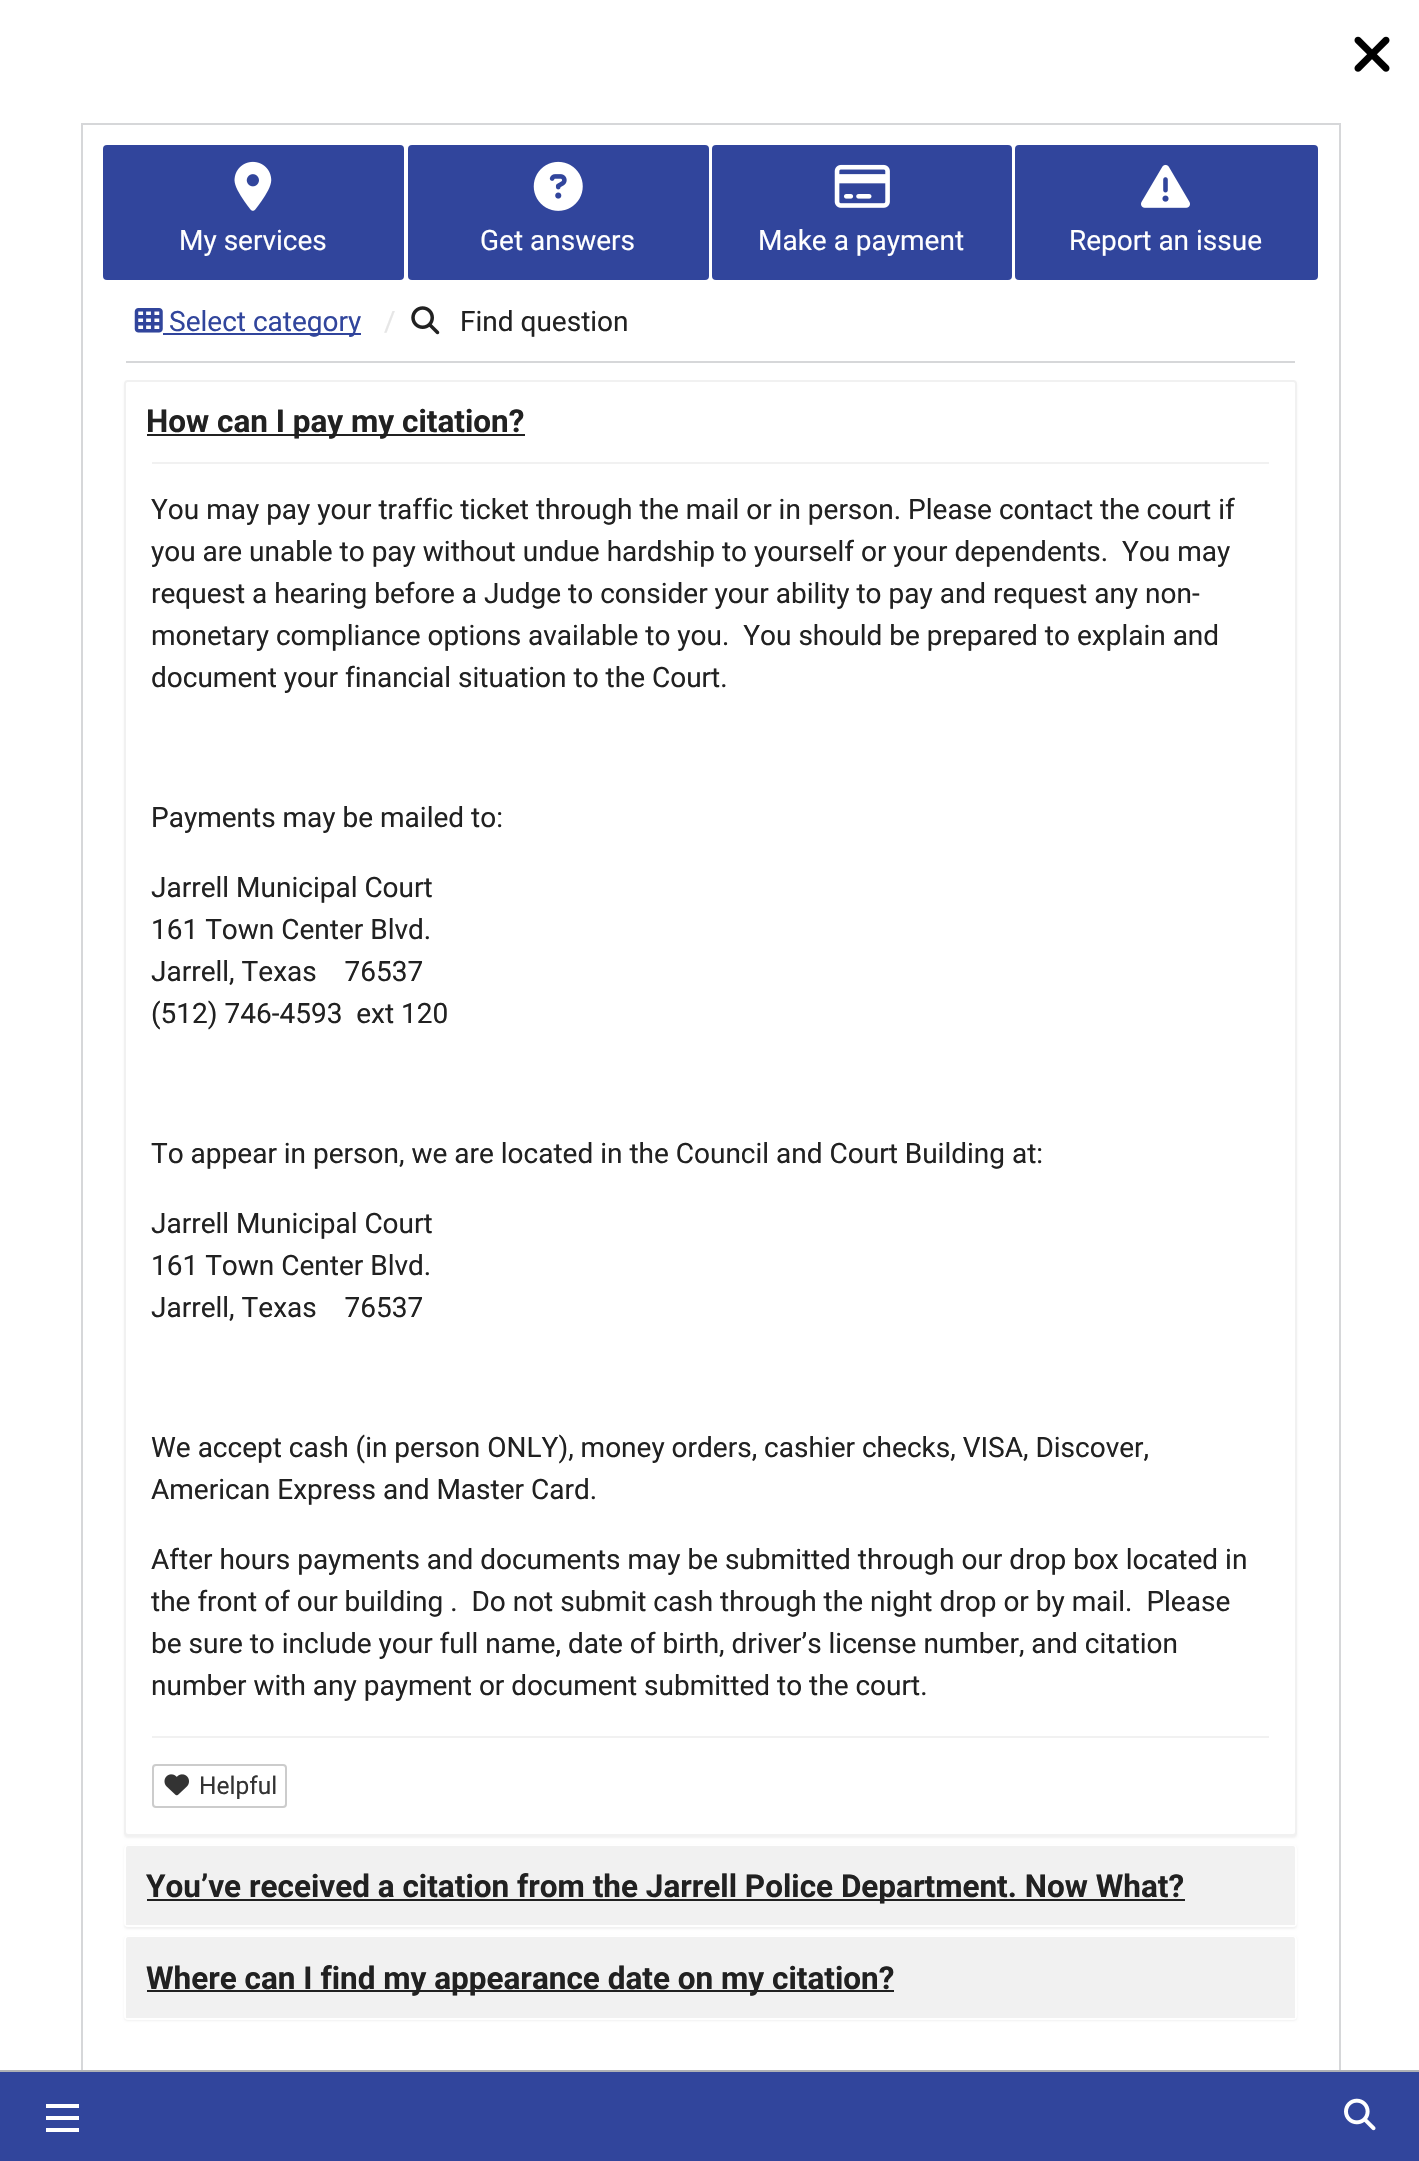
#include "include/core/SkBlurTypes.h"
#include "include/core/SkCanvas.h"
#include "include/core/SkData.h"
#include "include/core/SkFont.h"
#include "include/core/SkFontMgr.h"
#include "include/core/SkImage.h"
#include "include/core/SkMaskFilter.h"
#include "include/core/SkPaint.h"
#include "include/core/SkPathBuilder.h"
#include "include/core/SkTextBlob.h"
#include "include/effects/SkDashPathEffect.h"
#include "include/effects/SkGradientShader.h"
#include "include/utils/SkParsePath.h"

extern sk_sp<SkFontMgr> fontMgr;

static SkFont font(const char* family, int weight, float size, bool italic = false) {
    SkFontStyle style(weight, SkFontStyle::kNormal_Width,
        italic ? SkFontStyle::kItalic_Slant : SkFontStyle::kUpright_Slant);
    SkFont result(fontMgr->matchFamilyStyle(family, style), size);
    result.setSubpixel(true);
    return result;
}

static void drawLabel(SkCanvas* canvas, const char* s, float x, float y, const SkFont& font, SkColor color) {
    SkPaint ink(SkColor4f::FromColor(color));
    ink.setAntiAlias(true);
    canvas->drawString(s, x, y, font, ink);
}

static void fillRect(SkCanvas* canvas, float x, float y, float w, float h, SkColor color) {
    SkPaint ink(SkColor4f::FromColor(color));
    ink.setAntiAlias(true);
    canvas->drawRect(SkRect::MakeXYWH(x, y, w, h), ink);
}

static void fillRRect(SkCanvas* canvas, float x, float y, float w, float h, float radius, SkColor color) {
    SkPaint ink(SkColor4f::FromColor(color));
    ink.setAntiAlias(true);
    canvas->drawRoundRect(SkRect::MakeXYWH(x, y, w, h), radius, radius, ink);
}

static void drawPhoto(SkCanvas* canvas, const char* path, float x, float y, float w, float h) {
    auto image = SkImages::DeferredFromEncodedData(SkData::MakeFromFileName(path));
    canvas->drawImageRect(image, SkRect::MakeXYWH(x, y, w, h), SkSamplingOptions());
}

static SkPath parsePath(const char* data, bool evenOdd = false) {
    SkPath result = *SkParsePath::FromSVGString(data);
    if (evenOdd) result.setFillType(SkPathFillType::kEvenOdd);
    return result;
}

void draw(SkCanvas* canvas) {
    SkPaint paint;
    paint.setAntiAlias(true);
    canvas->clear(0xFFFFFFFF);
    drawPhoto(canvas, "assets/img1.png", 1354, 36, 36, 36);
    paint.setStroke(true);
    paint.setStrokeWidth(2);
    paint.setColor(0xFFD6D7D9);
    canvas->drawRect(SkRect::MakeXYWH(82, 124, 1258, 1968), paint);
    fillRRect(canvas, 103, 145, 301, 135, 4, 0xFF31459C);
    drawPhoto(canvas, "assets/img2.png", 234, 161, 38, 50);
    SkFont font1 = font("Roboto", 400, 28);
    drawLabel(canvas, "My services", 179, 250, font1, 0xFFFFFFFF);
    fillRRect(canvas, 408, 145, 301, 135, 4, 0xFF31459C);
    drawPhoto(canvas, "assets/img3.png", 533, 161, 50, 50);
    drawLabel(canvas, "Get answers", 480, 250, font1, 0xFFFFFFFF);
    fillRRect(canvas, 712, 145, 300, 135, 4, 0xFF31459C);
    drawPhoto(canvas, "assets/img4.png", 834, 164, 56, 44);
    drawLabel(canvas, "Make a payment", 758, 250, font1, 0xFFFFFFFF);
    fillRRect(canvas, 1015, 145, 303, 135, 4, 0xFF31459C);
    drawPhoto(canvas, "assets/img5.png", 1141, 164, 49, 44);
    drawLabel(canvas, "Report an issue", 1069, 250, font1, 0xFFFFFFFF);
    fillRect(canvas, 126, 361, 1169, 2, 0xFFD6D7D9);
    drawPhoto(canvas, "assets/img6.png", 134, 308, 29, 25);
    fillRect(canvas, 163, 333, 198, 2, 0xFF31459C);
    drawLabel(canvas, "Select category", 169, 331, font1, 0xFF31459C);
    drawLabel(canvas, "/", 384, 331, font1, 0xFFE6E6E6);
    drawPhoto(canvas, "assets/img7.png", 411, 306, 29, 29);
    drawLabel(canvas, "Find question", 460, 331, font1, 0xFF212121);
    paint.setStroke(false);
    paint.setColor(0x0D000000);
    paint.setMaskFilter(SkMaskFilter::MakeBlur(kNormal_SkBlurStyle, 1));
    canvas->drawRoundRect(SkRect::MakeXYWH(124, 382, 1173, 1456), 4, 4, paint);
    paint.setMaskFilter(nullptr);
    paint.setColor(0xFFFFFFFF);
    canvas->drawRoundRect(SkRect::MakeXYWH(125, 381, 1171, 1454), 3, 3, paint);
    paint.setStroke(true);
    paint.setColor(0xFFF1F1F1);
    canvas->drawRoundRect(SkRect::MakeXYWH(125, 381, 1171, 1454), 3, 3, paint);
    paint.setStroke(false);
    paint.setColor(0xFFFFFFFF);
    canvas->drawPath(parsePath("M128 382H1293C1294 382 1295 383 1295 384V462H126V384C126 383 127 382 128 382Z"), paint);
    fillRect(canvas, 147, 434, 378, 2, 0xFF212121);
    SkFont font2 = font("Roboto", 700, 31.5f);
    drawLabel(canvas, "How can I pay my citation?", 146, 432, font2, 0xFF212121);
    fillRect(canvas, 152, 462, 1117, 2, 0xFFF1F1F1);
    drawLabel(canvas, "You may pay your traffic ticket through the mail or in person. Please contact the court if", 151, 519, font1, 0xFF212121);
    drawLabel(canvas, "you are unable to pay without undue hardship to yourself or your dependents.  You may", 151, 561, font1, 0xFF212121);
    drawLabel(canvas, "request a hearing before a Judge to consider your ability to pay and request any non-", 151, 603, font1, 0xFF212121);
    drawLabel(canvas, "monetary compliance options available to you.  You should be prepared to explain and", 151, 645, font1, 0xFF212121);
    drawLabel(canvas, "document your financial situation to the Court.", 151, 687, font1, 0xFF212121);
    drawLabel(canvas, "Payments may be mailed to:", 151, 827, font1, 0xFF212121);
    drawLabel(canvas, "Jarrell Municipal Court", 151, 897, font1, 0xFF212121);
    drawLabel(canvas, "161 Town Center Blvd.", 151, 939, font1, 0xFF212121);
    drawLabel(canvas, "Jarrell, Texas    76537", 151, 981, font1, 0xFF212121);
    drawLabel(canvas, "(512) 746-4593  ext 120", 151, 1023, font1, 0xFF212121);
    drawLabel(canvas, "To appear in person, we are located in the Council and Court Building at:", 151, 1163, font1, 0xFF212121);
    drawLabel(canvas, "Jarrell Municipal Court", 151, 1233, font1, 0xFF212121);
    drawLabel(canvas, "161 Town Center Blvd.", 151, 1275, font1, 0xFF212121);
    drawLabel(canvas, "Jarrell, Texas    76537", 151, 1317, font1, 0xFF212121);
    drawLabel(canvas, "We accept cash (in person ONLY), money orders, cashier checks, VISA, Discover,", 151, 1457, font1, 0xFF212121);
    drawLabel(canvas, "American Express and Master Card.", 151, 1499, font1, 0xFF212121);
    drawLabel(canvas, "After hours payments and documents may be submitted through our drop box located in", 151, 1569, font1, 0xFF212121);
    drawLabel(canvas, "the front of our building .  Do not submit cash through the night drop or by mail.  Please", 151, 1611, font1, 0xFF212121);
    drawLabel(canvas, "be sure to include your full name, date of birth, driver’s license number, and citation", 151, 1653, font1, 0xFF212121);
    drawLabel(canvas, "number with any payment or document submitted to the court.", 151, 1695, font1, 0xFF212121);
    fillRect(canvas, 152, 1736, 1117, 2, 0xFFF1F1F1);
    paint.setStroke(true);
    paint.setColor(0xFFCCCCCC);
    canvas->drawRoundRect(SkRect::MakeXYWH(153, 1765, 133, 42), 3, 3, paint);
    drawPhoto(canvas, "assets/img8.png", 164, 1774, 25, 22);
    SkFont font3 = font("Roboto", 400, 24.5f);
    drawLabel(canvas, "Helpful", 199, 1794, font3, 0xFF333333);
    paint.setStroke(false);
    paint.setColor(0x0D000000);
    paint.setMaskFilter(SkMaskFilter::MakeBlur(kNormal_SkBlurStyle, 1));
    canvas->drawRoundRect(SkRect::MakeXYWH(124, 1846, 1173, 83), 4, 4, paint);
    paint.setMaskFilter(nullptr);
    fillRRect(canvas, 124, 1845, 1173, 82, 4, 0xFFFFFFFF);
    paint.setColor(0xFFF1F1F1);
    canvas->drawPath(parsePath("M128 1846H1293C1294 1846 1295 1847 1295 1848V1925H126V1848C126 1847 127 1846 128 1846Z"), paint);
    fillRect(canvas, 147, 1899, 1038, 2, 0xFF212121);
    drawLabel(canvas, "You’ve received a citation from the Jarrell Police Department. Now What?", 146, 1897, font2, 0xFF212121);
    paint.setColor(0x0D000000);
    paint.setMaskFilter(SkMaskFilter::MakeBlur(kNormal_SkBlurStyle, 1));
    canvas->drawRoundRect(SkRect::MakeXYWH(124, 1937, 1173, 84), 4, 4, paint);
    paint.setMaskFilter(nullptr);
    fillRRect(canvas, 124, 1936, 1173, 84, 4, 0xFFFFFFFF);
    paint.setColor(0xFFF1F1F1);
    canvas->drawPath(parsePath("M128 1937H1293C1294 1937 1295 1938 1295 1939V2018H126V1939C126 1938 127 1937 128 1937Z"), paint);
    fillRect(canvas, 147, 1990, 747, 2, 0xFF212121);
    drawLabel(canvas, "Where can I find my appearance date on my citation?", 146, 1989, font2, 0xFF212121);
    fillRect(canvas, 0, 2072, 1419, 89, 0xFF31459C);
    fillRect(canvas, 0, 2070, 1419, 2, 0xFFAEB0B5);
    drawPhoto(canvas, "assets/img9.png", 1344, 2098, 32, 33);
    fillRect(canvas, 46, 2116, 33, 4, 0xFFFFFFFF);
    fillRect(canvas, 46, 2104, 33, 4, 0xFFFFFFFF);
    fillRect(canvas, 46, 2128, 33, 4, 0xFFFFFFFF);
}
